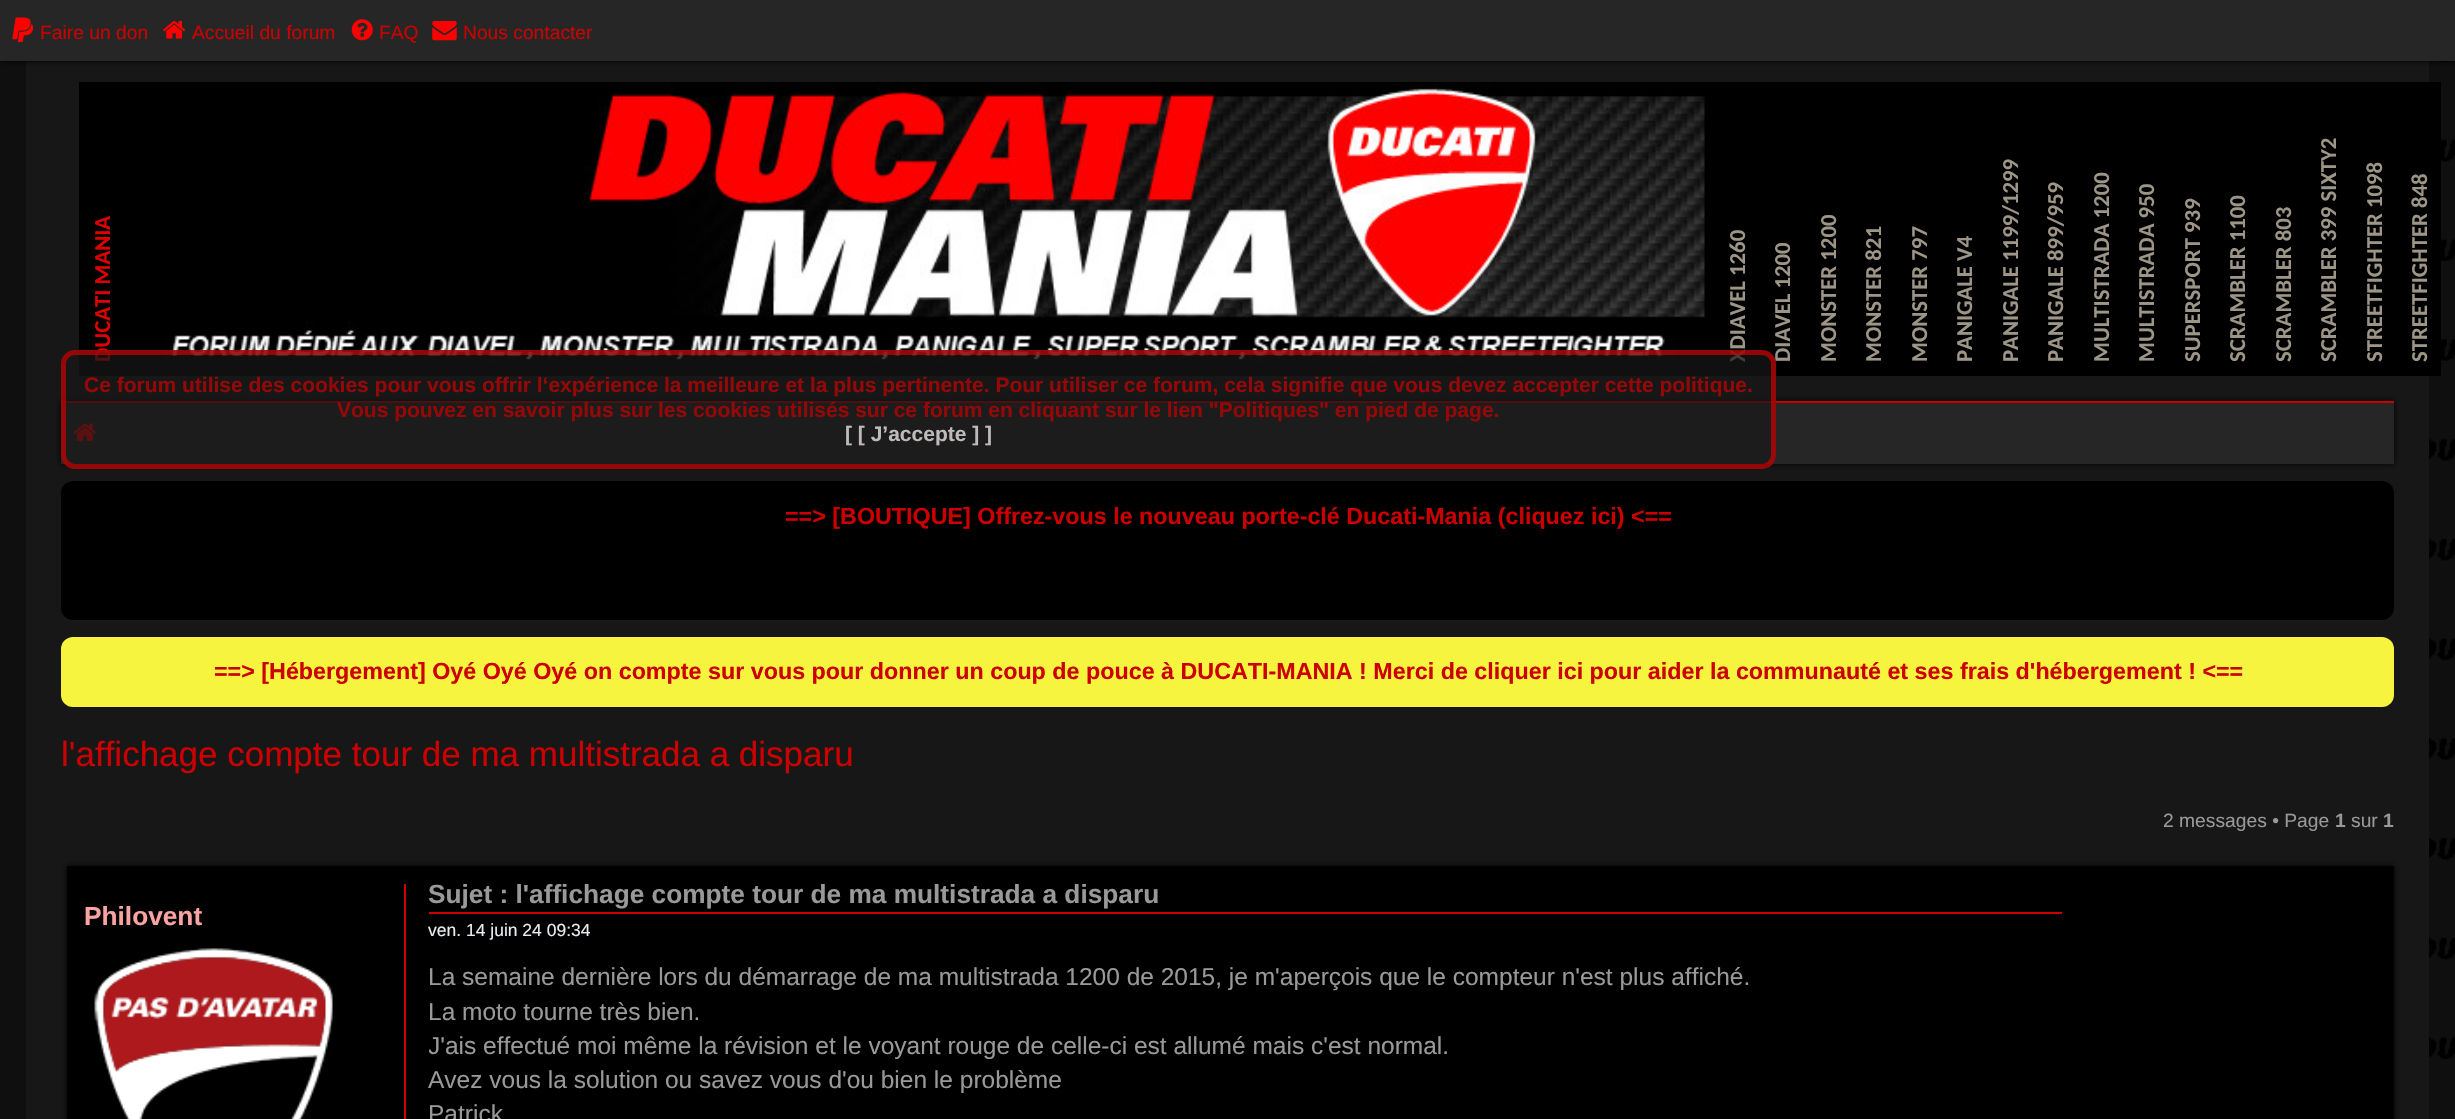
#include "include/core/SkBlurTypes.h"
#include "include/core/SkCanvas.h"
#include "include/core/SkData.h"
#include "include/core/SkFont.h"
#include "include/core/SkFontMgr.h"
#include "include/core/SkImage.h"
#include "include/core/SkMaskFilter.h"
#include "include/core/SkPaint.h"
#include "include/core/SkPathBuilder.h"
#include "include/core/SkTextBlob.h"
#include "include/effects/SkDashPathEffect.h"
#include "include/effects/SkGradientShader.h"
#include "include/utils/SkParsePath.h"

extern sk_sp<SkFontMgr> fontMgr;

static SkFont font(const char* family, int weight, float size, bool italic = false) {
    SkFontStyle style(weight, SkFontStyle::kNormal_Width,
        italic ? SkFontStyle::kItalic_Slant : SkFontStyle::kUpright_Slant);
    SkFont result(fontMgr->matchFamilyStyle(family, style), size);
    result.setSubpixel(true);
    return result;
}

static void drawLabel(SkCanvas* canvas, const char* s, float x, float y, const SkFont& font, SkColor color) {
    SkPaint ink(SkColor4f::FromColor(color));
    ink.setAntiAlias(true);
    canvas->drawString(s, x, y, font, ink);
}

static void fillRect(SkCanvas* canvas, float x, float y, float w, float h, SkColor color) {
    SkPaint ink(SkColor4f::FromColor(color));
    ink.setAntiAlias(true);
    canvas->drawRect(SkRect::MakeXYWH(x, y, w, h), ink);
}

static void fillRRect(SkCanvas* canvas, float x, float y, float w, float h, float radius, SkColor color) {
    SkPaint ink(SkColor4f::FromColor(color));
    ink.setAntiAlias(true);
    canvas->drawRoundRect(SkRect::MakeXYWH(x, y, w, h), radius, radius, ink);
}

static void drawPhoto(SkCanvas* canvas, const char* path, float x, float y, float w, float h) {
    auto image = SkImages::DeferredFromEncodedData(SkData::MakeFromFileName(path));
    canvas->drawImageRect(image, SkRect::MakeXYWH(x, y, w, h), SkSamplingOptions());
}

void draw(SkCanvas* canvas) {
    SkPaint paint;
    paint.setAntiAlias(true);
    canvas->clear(0xFFFFFFFF);
    drawPhoto(canvas, "assets/img1.png", 0, 61, 2455, 1058);
    fillRect(canvas, 26, 61, 2403, 1058, 0xFF171717);
    paint.setColor(0xFF000000);
    paint.setMaskFilter(SkMaskFilter::MakeBlur(kNormal_SkBlurStyle, 3.5f));
    canvas->drawRect(SkRect::MakeXYWH(0, 0, 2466, 61), paint);
    paint.setMaskFilter(nullptr);
    fillRect(canvas, 0, 0, 2455, 61, 0xFF262626);
    drawPhoto(canvas, "assets/img2.png", 12, 17, 22, 25);
    SkFont font1 = font("Liberation Sans", 400, 19.25f);
    drawLabel(canvas, "Faire un don", 40, 39, font1, 0xFFCC0000);
    drawPhoto(canvas, "assets/img3.png", 163, 21, 23, 18);
    drawLabel(canvas, "Accueil du forum", 192, 39, font1, 0xFFCC0000);
    drawPhoto(canvas, "assets/img4.png", 351, 19, 22, 22);
    drawLabel(canvas, "FAQ", 379, 39, font1, 0xFFCC0000);
    drawPhoto(canvas, "assets/img5.png", 432, 21, 25, 20);
    drawLabel(canvas, "Nous contacter", 463, 39, font1, 0xFFCC0000);
    fillRect(canvas, 79, 82, 2362, 294, 0xFF000000);
    SkFont font2 = font("Carlito", 700, 22.75f);
    canvas->save();
    canvas->rotate(-90, 110, 362);
    drawLabel(canvas, "DUCATI MANIA", 110, 362, font2, 0xFFDF0000);
    canvas->restore();
    drawPhoto(canvas, "assets/img6.png", 165, 83, 1540, 279);
    canvas->save();
    canvas->rotate(-90, 1745, 362);
    drawLabel(canvas, "XDIAVEL 1260", 1745, 362, font2, 0xFF9D9587);
    canvas->restore();
    canvas->save();
    canvas->rotate(-90, 1790, 362);
    drawLabel(canvas, "DIAVEL 1200", 1790, 362, font2, 0xFF9D9587);
    canvas->restore();
    canvas->save();
    canvas->rotate(-90, 1836, 362);
    drawLabel(canvas, "MONSTER 1200", 1836, 362, font2, 0xFF9D9587);
    canvas->restore();
    canvas->save();
    canvas->rotate(-90, 1881, 362);
    drawLabel(canvas, "MONSTER 821", 1881, 362, font2, 0xFF9D9587);
    canvas->restore();
    canvas->save();
    canvas->rotate(-90, 1927, 362);
    drawLabel(canvas, "MONSTER 797", 1927, 362, font2, 0xFF9D9587);
    canvas->restore();
    canvas->save();
    canvas->rotate(-90, 1972, 362);
    drawLabel(canvas, "PANIGALE V4", 1972, 362, font2, 0xFF9D9587);
    canvas->restore();
    canvas->save();
    canvas->rotate(-90, 2018, 362);
    drawLabel(canvas, "PANIGALE 1199/1299", 2018, 362, font2, 0xFF9D9587);
    canvas->restore();
    canvas->save();
    canvas->rotate(-90, 2063, 362);
    drawLabel(canvas, "PANIGALE 899/959", 2063, 362, font2, 0xFF9D9587);
    canvas->restore();
    canvas->save();
    canvas->rotate(-90, 2109, 362);
    drawLabel(canvas, "MULTISTRADA 1200", 2109, 362, font2, 0xFF9D9587);
    canvas->restore();
    canvas->save();
    canvas->rotate(-90, 2154, 362);
    drawLabel(canvas, "MULTISTRADA 950", 2154, 362, font2, 0xFF9D9587);
    canvas->restore();
    canvas->save();
    canvas->rotate(-90, 2200, 362);
    drawLabel(canvas, "SUPERSPORT 939", 2200, 362, font2, 0xFF9D9587);
    canvas->restore();
    canvas->save();
    canvas->rotate(-90, 2245, 362);
    drawLabel(canvas, "SCRAMBLER 1100", 2245, 362, font2, 0xFF9D9587);
    canvas->restore();
    canvas->save();
    canvas->rotate(-90, 2291, 362);
    drawLabel(canvas, "SCRAMBLER 803", 2291, 362, font2, 0xFF9D9587);
    canvas->restore();
    canvas->save();
    canvas->rotate(-90, 2336, 362);
    drawLabel(canvas, "SCRAMBLER 399 SIXTY2", 2336, 362, font2, 0xFF9D9587);
    canvas->restore();
    canvas->save();
    canvas->rotate(-90, 2382, 362);
    drawLabel(canvas, "STREETFIGHTER 1098", 2382, 362, font2, 0xFF9D9587);
    canvas->restore();
    canvas->save();
    canvas->rotate(-90, 2427, 362);
    drawLabel(canvas, "STREETFIGHTER 848", 2427, 362, font2, 0xFF9D9587);
    canvas->restore();
    paint.setMaskFilter(SkMaskFilter::MakeBlur(kNormal_SkBlurStyle, 3.5f));
    canvas->drawRect(SkRect::MakeXYWH(61, 401, 2333, 63), paint);
    paint.setMaskFilter(nullptr);
    fillRect(canvas, 61, 403, 2333, 61, 0xFF262626);
    fillRect(canvas, 61, 401, 2333, 2, 0xFFCC0000);
    drawPhoto(canvas, "assets/img7.png", 73, 423, 23, 18);
    fillRRect(canvas, 61, 350, 1715, 119, 14, 0xB3171717);
    paint.setStroke(true);
    paint.setStrokeWidth(5);
    paint.setColor(0xB3CC0000);
    canvas->drawRoundRect(SkRect::MakeXYWH(63.5f, 352.5f, 1710, 114), 11.5f, 11.5f, paint);
    SkFont font3 = font("Liberation Sans", 700, 21);
    drawLabel(canvas, "Ce forum utilise des cookies pour vous offrir l‘expérience la meilleure et la plus pertinente. Pour utiliser ce forum, cela signifie que vous devez accepter cette politique.", 84, 392, font3, 0xFF960707);
    drawLabel(canvas, "Vous pouvez en savoir plus sur les cookies utilisés sur ce forum en cliquant sur le lien \"Politiques\" en pied de page.", 337, 417, font3, 0xFF960707);
    drawLabel(canvas, "[ [ J’accepte ] ]", 845, 441, font3, 0xFFBFBABA);
    fillRRect(canvas, 61, 481, 2333, 139, 12, 0xFF000000);
    SkFont font4 = font("Liberation Sans", 700, 23.3f);
    drawLabel(canvas, "==> [BOUTIQUE] Offrez-vous le nouveau porte-clé Ducati-Mania (cliquez ici) <==", 785, 524, font4, 0xFFCC0000);
    fillRRect(canvas, 61, 637, 2333, 70, 12, 0xFFF7F440);
    drawLabel(canvas, "==> [Hébergement] Oyé Oyé Oyé on compte sur vous pour donner un coup de pouce à DUCATI-MANIA ! Merci de cliquer ici pour aider la communauté et ses frais d'hébergement ! <==", 214, 679, font4, 0xFFCC0000);
    SkFont font5 = font("Liberation Sans", 400, 35);
    drawLabel(canvas, "l'affichage compte tour de ma multistrada a disparu", 61, 766, font5, 0xFFCC0000);
    drawLabel(canvas, "2 messages • Page", 2163, 827, font1, 0xFF999999);
    SkFont font6 = font("Liberation Sans", 700, 19.25f);
    drawLabel(canvas, "1", 2335, 827, font6, 0xFF999999);
    drawLabel(canvas, "sur", 2351, 827, font1, 0xFF999999);
    drawLabel(canvas, "1", 2383, 827, font6, 0xFF999999);
    paint.setStroke(false);
    paint.setColor(0xFF000000);
    paint.setMaskFilter(SkMaskFilter::MakeBlur(kNormal_SkBlurStyle, 3.5f));
    canvas->drawRect(SkRect::MakeXYWH(67, 866, 2327, 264), paint);
    paint.setMaskFilter(nullptr);
    fillRect(canvas, 67, 866, 2327, 253, 0xFF000000);
    fillRect(canvas, 404, 884, 2, 235, 0xFFCC0000);
    SkFont font7 = font("Liberation Sans", 700, 26.25f);
    drawLabel(canvas, "Philovent", 84, 925, font7, 0xFFFAA3A3);
    drawPhoto(canvas, "assets/img8.png", 94, 948, 239, 171);
    fillRect(canvas, 429, 912, 1633, 2, 0xFFCC0000);
    drawLabel(canvas, "Sujet : l'affichage compte tour de ma multistrada a disparu", 428, 903, font7, 0xFF999999);
    SkFont font8 = font("Liberation Sans", 400, 17.5f);
    drawLabel(canvas, "ven. 14 juin 24 09:34", 428, 936, font8, 0xFFE9EBEE);
    SkFont font9 = font("Liberation Sans", 400, 24.5f);
    drawLabel(canvas, "La semaine dernière lors du démarrage de ma multistrada 1200 de 2015, je m'aperçois que le compteur n'est plus affiché.", 428, 985, font9, 0xFF999999);
    drawLabel(canvas, "La moto tourne très bien.", 428, 1020, font9, 0xFF999999);
    canvas->save();
    canvas->clipRect(SkRect::MakeXYWH(429, 961, 1948, 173));
    drawLabel(canvas, "J'ais effectué moi même la révision et le voyant rouge de celle-ci est allumé mais c'est normal.", 428, 1054, font9, 0xFF999999);
    canvas->restore();
    drawLabel(canvas, "Avez vous la solution ou savez vous d'ou bien le problème", 428, 1088, font9, 0xFF999999);
    drawLabel(canvas, "Patrick", 428, 1122, font9, 0xFF999999);
}
